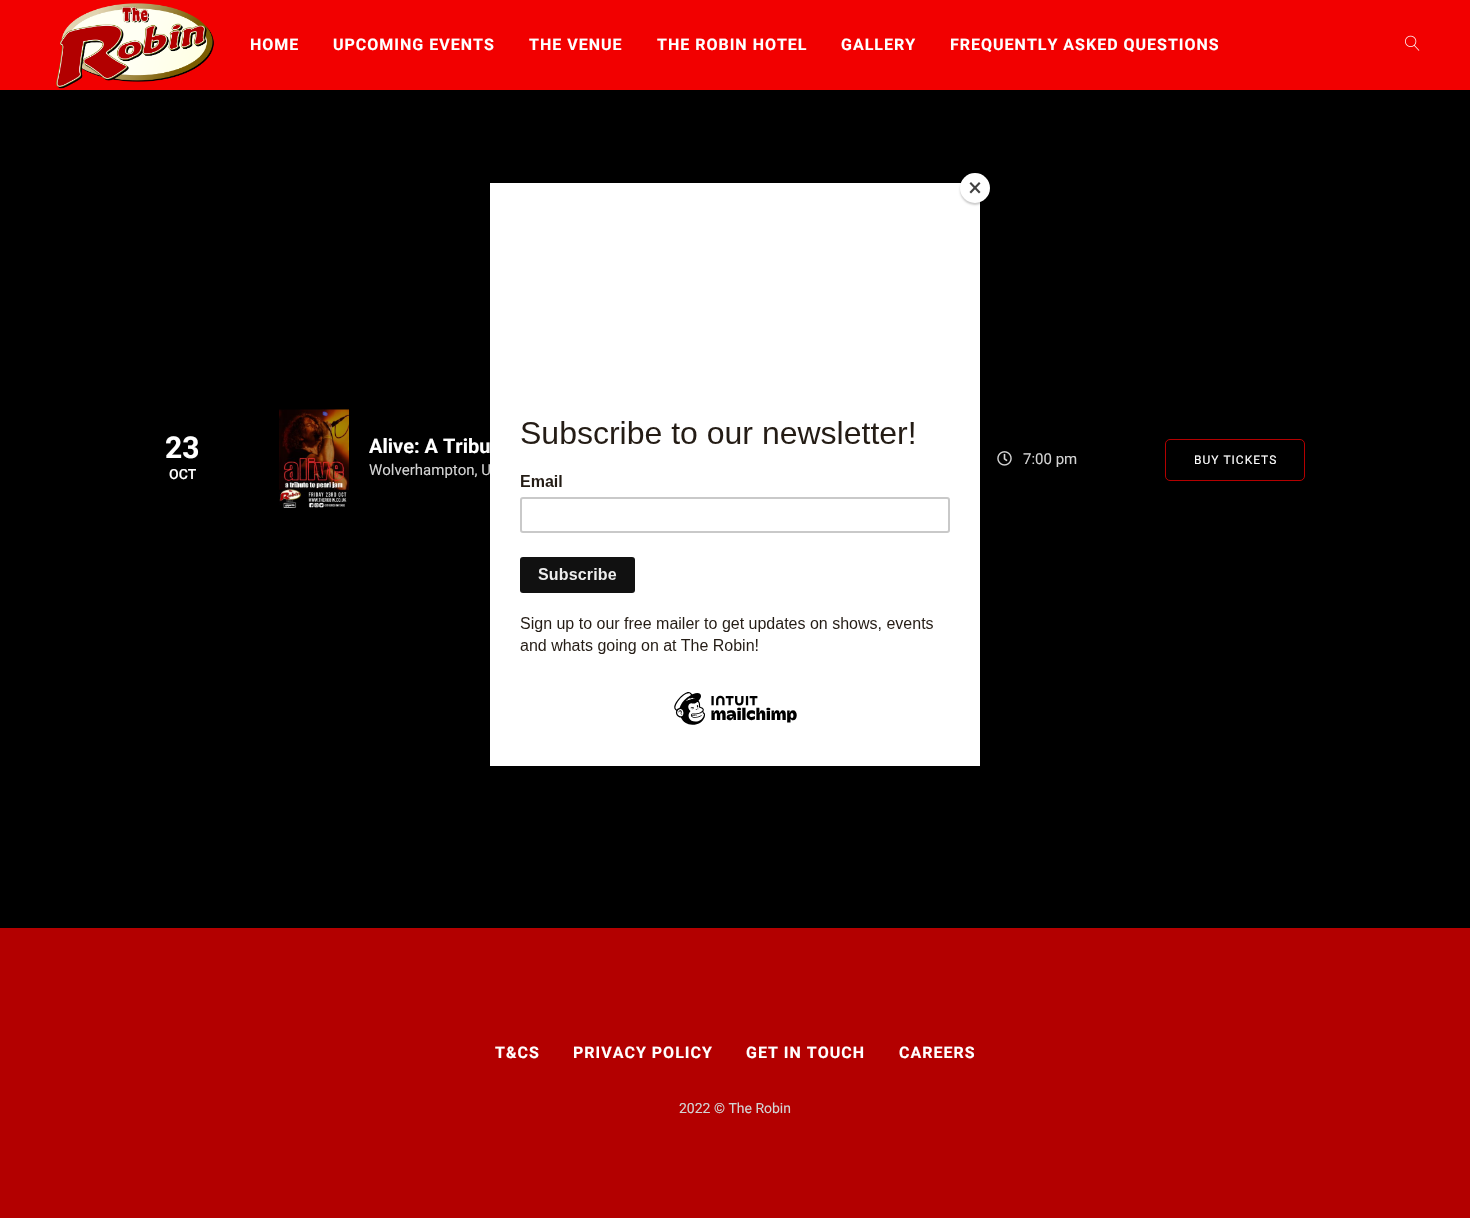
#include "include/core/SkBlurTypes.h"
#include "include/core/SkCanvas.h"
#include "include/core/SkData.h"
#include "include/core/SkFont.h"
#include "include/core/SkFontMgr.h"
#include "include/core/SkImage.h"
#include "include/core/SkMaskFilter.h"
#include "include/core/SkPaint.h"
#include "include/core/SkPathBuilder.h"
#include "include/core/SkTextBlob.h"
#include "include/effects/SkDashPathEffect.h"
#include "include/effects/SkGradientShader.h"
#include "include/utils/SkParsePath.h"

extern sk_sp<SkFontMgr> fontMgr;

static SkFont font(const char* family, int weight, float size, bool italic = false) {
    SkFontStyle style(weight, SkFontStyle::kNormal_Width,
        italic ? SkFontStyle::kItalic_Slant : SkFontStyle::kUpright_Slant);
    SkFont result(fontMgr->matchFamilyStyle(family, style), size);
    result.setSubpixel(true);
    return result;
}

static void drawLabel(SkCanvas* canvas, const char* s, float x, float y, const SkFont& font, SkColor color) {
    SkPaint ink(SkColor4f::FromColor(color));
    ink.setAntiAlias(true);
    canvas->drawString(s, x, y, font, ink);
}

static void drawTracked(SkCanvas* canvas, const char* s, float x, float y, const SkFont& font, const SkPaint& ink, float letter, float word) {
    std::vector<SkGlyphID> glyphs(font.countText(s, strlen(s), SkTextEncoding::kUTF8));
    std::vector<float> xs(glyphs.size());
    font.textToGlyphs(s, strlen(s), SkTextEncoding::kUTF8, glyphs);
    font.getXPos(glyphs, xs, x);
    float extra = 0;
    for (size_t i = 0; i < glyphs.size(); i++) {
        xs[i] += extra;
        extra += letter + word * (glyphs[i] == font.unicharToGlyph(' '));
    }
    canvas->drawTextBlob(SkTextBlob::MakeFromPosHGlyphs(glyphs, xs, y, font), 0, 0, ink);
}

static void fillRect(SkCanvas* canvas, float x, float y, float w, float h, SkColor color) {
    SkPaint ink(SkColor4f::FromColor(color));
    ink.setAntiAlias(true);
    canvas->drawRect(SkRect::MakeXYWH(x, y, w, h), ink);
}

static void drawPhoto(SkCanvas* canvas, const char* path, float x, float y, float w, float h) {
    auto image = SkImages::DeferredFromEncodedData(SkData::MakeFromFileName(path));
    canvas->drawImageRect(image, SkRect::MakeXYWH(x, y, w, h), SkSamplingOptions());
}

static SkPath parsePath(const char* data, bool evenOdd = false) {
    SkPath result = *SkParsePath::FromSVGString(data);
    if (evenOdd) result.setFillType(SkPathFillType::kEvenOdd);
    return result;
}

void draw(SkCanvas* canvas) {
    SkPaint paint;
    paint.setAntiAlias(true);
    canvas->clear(0xFF000000);
    fillRect(canvas, 0, 0, 1470, 90, 0xFFF20000);
    drawPhoto(canvas, "assets/img1.png", 56, 3, 158, 86);
    SkFont font1 = font("Roboto", 700, 16);
    paint.setColor(0xFFFFFFFF);
    drawTracked(canvas, "HOME", 250, 50, font1, paint, 1, 0);
    drawTracked(canvas, "UPCOMING EVENTS", 333, 50, font1, paint, 1, 0);
    drawTracked(canvas, "THE VENUE", 529, 50, font1, paint, 1, 0);
    drawTracked(canvas, "THE ROBIN HOTEL", 657, 50, font1, paint, 1, 0);
    drawTracked(canvas, "GALLERY", 841, 50, font1, paint, 1, 0);
    drawTracked(canvas, "FREQUENTLY ASKED QUESTIONS", 950, 50, font1, paint, 1, 0);
    drawPhoto(canvas, "assets/img2.png", 1405, 35, 15, 16);
    SkFont font2 = font("Roboto", 700, 30);
    drawLabel(canvas, "23", 165, 458, font2, 0xFFFFFFFF);
    SkFont font3 = font("Roboto", 500, 14);
    drawLabel(canvas, "OCT", 169, 479, font3, 0xFFFFFFFF);
    drawPhoto(canvas, "assets/img3.png", 279, 409, 70, 99);
    SkFont font4 = font("Roboto", 700, 20);
    drawLabel(canvas, "Alive: A Tribu", 369, 453, font4, 0xFFFFFFFF);
    SkFont font5 = font("Roboto", 400, 15);
    drawLabel(canvas, "Wolverhampton, U", 369, 475, font5, 0xFFD3D3D3);
    drawPhoto(canvas, "assets/img4.png", 997, 451, 15, 15);
    drawLabel(canvas, "7:00 pm", 1023, 464, font5, 0xFFD3D3D3);
    paint.setStroke(true);
    paint.setStrokeWidth(1);
    paint.setColor(0xFFB30000);
    canvas->drawRoundRect(SkRect::MakeXYWH(1165.5f, 439.5f, 139, 41), 4.5f, 4.5f, paint);
    SkFont font6 = font("Roboto", 400, 12);
    paint.setStroke(false);
    paint.setColor(0xFFFFFFFF);
    drawTracked(canvas, "BUY TICKETS", 1194, 464, font6, paint, 1, 0);
    fillRect(canvas, 0, 928, 1470, 290, 0xFFB30000);
    drawTracked(canvas, "T&CS", 495, 1058, font1, paint, 1, 0);
    drawTracked(canvas, "PRIVACY POLICY", 573, 1058, font1, paint, 1, 0);
    drawTracked(canvas, "GET IN TOUCH", 746, 1058, font1, paint, 1, 0);
    drawTracked(canvas, "CAREERS", 899, 1058, font1, paint, 1, 0);
    SkFont font7 = font("Roboto", 400, 14);
    drawLabel(canvas, "2022 © The Robin", 679, 1113, font7, 0xFFD3D3D3);
    paint.setColor(0x33000000);
    paint.setMaskFilter(SkMaskFilter::MakeBlur(kNormal_SkBlurStyle, 2));
    canvas->drawRect(SkRect::MakeXYWH(490, 185, 490, 583), paint);
    paint.setMaskFilter(nullptr);
    drawPhoto(canvas, "assets/img5.png", 490, 183, 490, 583);
    paint.setMaskFilter(SkMaskFilter::MakeBlur(kNormal_SkBlurStyle, 1));
    canvas->drawRoundRect(SkRect::MakeXYWH(960, 175, 30, 30), 15, 15, paint);
    paint.setMaskFilter(nullptr);
    paint.setColor(0xFFFFFFFF);
    canvas->drawCircle(975, 188, 15, paint);
    paint.setColor(0xFF414141);
    canvas->drawPath(parsePath("M979 182L980.5 183.5L971 193.5L969.5 192Z"), paint);
    canvas->drawPath(parsePath("M969.5 183.5L971 182L980.5 192L979 193.5Z"), paint);
}
